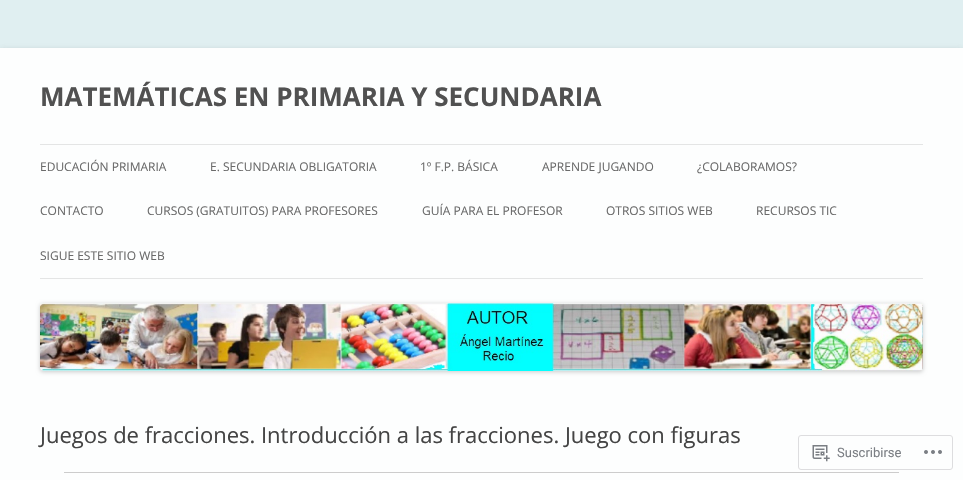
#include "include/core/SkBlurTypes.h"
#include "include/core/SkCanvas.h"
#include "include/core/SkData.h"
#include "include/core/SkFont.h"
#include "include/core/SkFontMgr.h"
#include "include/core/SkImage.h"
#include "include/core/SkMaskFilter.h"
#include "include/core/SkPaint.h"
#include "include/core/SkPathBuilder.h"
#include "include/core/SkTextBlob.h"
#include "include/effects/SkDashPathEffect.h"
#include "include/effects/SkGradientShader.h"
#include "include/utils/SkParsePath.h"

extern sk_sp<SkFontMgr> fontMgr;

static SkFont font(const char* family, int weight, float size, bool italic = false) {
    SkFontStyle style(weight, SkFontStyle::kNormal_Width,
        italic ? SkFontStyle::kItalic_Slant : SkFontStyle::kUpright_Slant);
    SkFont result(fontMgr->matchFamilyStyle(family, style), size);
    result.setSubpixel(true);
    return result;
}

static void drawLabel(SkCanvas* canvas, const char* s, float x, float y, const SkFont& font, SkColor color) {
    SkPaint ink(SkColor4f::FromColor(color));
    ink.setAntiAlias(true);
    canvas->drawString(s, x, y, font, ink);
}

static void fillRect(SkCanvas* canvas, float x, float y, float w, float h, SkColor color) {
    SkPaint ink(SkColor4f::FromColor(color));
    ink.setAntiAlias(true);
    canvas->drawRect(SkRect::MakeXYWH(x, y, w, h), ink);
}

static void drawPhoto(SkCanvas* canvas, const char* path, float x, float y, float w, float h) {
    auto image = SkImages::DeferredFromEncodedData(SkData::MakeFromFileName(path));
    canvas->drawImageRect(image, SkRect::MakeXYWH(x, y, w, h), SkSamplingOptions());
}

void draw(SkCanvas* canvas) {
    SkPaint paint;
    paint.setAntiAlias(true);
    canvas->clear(0xFFE0EFF1);
    paint.setColor(0x4D646464);
    paint.setMaskFilter(SkMaskFilter::MakeBlur(kNormal_SkBlurStyle, 3));
    canvas->drawRect(SkRect::MakeXYWH(0, 50, 963, 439), paint);
    paint.setMaskFilter(nullptr);
    fillRect(canvas, 0, 48, 963, 432, 0xFFFDFEFE);
    SkFont font1 = font("Open Sans", 700, 26);
    drawLabel(canvas, "MATEMÁTICAS EN PRIMARIA Y SECUNDARIA", 40, 106, font1, 0xFF515151);
    fillRect(canvas, 40, 144, 883, 1, 0xFFE4E5E5);
    fillRect(canvas, 40, 278, 883, 1, 0xFFE4E5E5);
    SkFont font2 = font("Open Sans", 400, 12);
    drawLabel(canvas, "EDUCACIÓN PRIMARIA", 40, 171, font2, 0xFF6A6A6A);
    drawLabel(canvas, "E. SECUNDARIA OBLIGATORIA", 210, 171, font2, 0xFF6A6A6A);
    drawLabel(canvas, "1º F.P. BÁSICA", 420, 171, font2, 0xFF6A6A6A);
    drawLabel(canvas, "APRENDE JUGANDO", 542, 171, font2, 0xFF6A6A6A);
    drawLabel(canvas, "¿COLABORAMOS?", 697, 171, font2, 0xFF6A6A6A);
    drawLabel(canvas, "CONTACTO", 40, 215, font2, 0xFF6A6A6A);
    drawLabel(canvas, "CURSOS (GRATUITOS) PARA PROFESORES", 147, 215, font2, 0xFF6A6A6A);
    drawLabel(canvas, "GUÍA PARA EL PROFESOR", 422, 215, font2, 0xFF6A6A6A);
    drawLabel(canvas, "OTROS SITIOS WEB", 606, 215, font2, 0xFF6A6A6A);
    drawLabel(canvas, "RECURSOS TIC", 756, 215, font2, 0xFF6A6A6A);
    drawLabel(canvas, "SIGUE ESTE SITIO WEB", 40, 260, font2, 0xFF6A6A6A);
    paint.setColor(0x33000000);
    paint.setMaskFilter(SkMaskFilter::MakeBlur(kNormal_SkBlurStyle, 2));
    canvas->drawRoundRect(SkRect::MakeXYWH(40, 304, 883, 68), 3, 3, paint);
    paint.setMaskFilter(nullptr);
    drawPhoto(canvas, "assets/img1.png", 40, 303, 883, 68);
    SkFont font3 = font("Open Sans", 400, 22);
    drawLabel(canvas, "Juegos de fracciones. Introducción a las fracciones. Juego con figuras", 40, 443, font3, 0xFF444444);
    fillRect(canvas, 64, 472, 835, 1, 0xFFCCCCCC);
    paint.setStroke(true);
    paint.setStrokeWidth(1);
    paint.setColor(0xFFDDDDDF);
    canvas->drawRoundRect(SkRect::MakeXYWH(798.5f, 435.5f, 154, 34), 2.5f, 2.5f, paint);
    drawPhoto(canvas, "assets/img2.png", 812, 445, 18, 17);
    SkFont font4 = font("Roboto", 400, 13);
    drawLabel(canvas, "Suscribirse", 837, 457, font4, 0xFF7B7F84);
    drawPhoto(canvas, "assets/img3.png", 924, 450, 18, 4);
}
